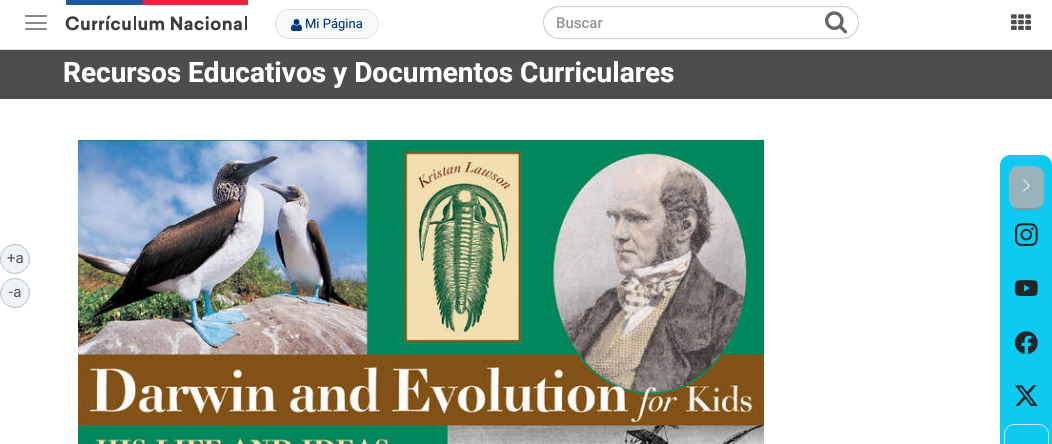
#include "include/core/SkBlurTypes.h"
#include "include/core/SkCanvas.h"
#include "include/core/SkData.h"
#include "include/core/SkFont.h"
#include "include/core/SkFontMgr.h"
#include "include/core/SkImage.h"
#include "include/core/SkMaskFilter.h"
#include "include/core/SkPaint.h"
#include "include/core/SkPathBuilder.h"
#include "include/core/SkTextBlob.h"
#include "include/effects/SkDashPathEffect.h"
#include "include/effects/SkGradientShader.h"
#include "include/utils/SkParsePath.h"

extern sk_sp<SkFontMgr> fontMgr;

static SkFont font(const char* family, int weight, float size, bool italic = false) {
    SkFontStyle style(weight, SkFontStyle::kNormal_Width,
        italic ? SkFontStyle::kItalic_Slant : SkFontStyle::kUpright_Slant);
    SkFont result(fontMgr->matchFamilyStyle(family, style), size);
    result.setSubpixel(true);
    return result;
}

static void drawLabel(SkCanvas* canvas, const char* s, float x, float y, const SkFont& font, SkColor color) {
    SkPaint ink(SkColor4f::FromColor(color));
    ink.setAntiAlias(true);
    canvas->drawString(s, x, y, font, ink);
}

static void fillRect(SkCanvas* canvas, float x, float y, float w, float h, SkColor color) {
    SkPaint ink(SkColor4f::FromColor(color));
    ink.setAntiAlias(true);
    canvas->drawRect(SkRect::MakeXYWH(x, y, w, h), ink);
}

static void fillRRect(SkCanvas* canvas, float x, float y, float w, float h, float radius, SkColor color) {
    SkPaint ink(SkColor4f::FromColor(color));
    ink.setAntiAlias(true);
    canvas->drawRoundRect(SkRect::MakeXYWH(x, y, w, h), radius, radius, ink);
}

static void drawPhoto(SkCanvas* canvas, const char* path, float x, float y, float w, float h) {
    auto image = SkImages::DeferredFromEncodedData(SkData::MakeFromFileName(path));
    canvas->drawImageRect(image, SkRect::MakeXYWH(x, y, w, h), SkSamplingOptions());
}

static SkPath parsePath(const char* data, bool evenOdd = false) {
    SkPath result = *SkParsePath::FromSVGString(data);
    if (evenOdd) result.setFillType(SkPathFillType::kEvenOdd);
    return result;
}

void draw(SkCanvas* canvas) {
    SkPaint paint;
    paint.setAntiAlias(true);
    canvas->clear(0xFFFFFFFF);
    fillRect(canvas, 0, 49, 1052, 1, 0xFFDDDDDD);
    fillRRect(canvas, 25, 15, 22, 2, 1, 0xFF888888);
    fillRRect(canvas, 25, 22, 22, 2, 1, 0xFF888888);
    fillRRect(canvas, 25, 28, 22, 2, 1, 0xFF888888);
    drawPhoto(canvas, "assets/img1.png", 65, 0, 183, 31);
    paint.setColor(0xFFF8F9FA);
    canvas->drawRoundRect(SkRect::MakeXYWH(275.5f, 9.5f, 103, 29), 14.5f, 14.5f, paint);
    paint.setStroke(true);
    paint.setStrokeWidth(1);
    paint.setColor(0xFFDDDDDD);
    canvas->drawRoundRect(SkRect::MakeXYWH(275.5f, 9.5f, 103, 29), 14.5f, 14.5f, paint);
    drawPhoto(canvas, "assets/img2.png", 291, 19, 11, 12);
    SkFont font1 = font("Roboto", 400, 13);
    drawLabel(canvas, "Mi Página", 305, 28, font1, 0xFF003882);
    paint.setStroke(false);
    paint.setColor(0xFFCCCCCC);
    canvas->drawPath(parsePath("M560 6H821V39H560C550 39 543 32 543 22C543 13 550 6 560 6ZM560 7H821V38H560C551 38 544 31 544 22C544 14 551 7 560 7Z", true), paint);
    SkFont font2 = font("Roboto", 500, 15);
    drawLabel(canvas, "Buscar", 556, 28, font2, 0xFF999999);
    canvas->drawPath(parsePath("M821 6H842.5C851.5 6 859 13.5 859 22.5C859 31.5 851.5 39 842.5 39H821ZM821 7H842.5C851 7 858 14 858 22.5C858 31 851 38 842.5 38H821Z", true), paint);
    drawPhoto(canvas, "assets/img3.png", 825, 11, 22, 23);
    drawPhoto(canvas, "assets/img4.png", 1011, 14, 20, 16);
    fillRect(canvas, 0, 50, 1052, 49, 0xFF4D4D4D);
    SkFont font3 = font("Roboto", 700, 28);
    drawLabel(canvas, "Recursos Educativos y Documentos Curriculares", 63, 82, font3, 0xFFFFFFFF);
    drawPhoto(canvas, "assets/img5.png", 78, 140, 686, 304);
    paint.setColor(0xFFEFF3F5);
    canvas->drawCircle(15, 259, 14.5f, paint);
    paint.setStroke(true);
    paint.setColor(0xFFADC2C9);
    canvas->drawCircle(15, 259, 14.5f, paint);
    SkFont font4 = font("Roboto", 400, 15);
    drawLabel(canvas, "+a", 7, 263, font4, 0xFF5C5C5C);
    paint.setStroke(false);
    paint.setColor(0xFFEFF3F5);
    canvas->drawCircle(15, 293, 14.5f, paint);
    paint.setStroke(true);
    paint.setColor(0xFFADC2C9);
    canvas->drawCircle(15, 293, 14.5f, paint);
    drawLabel(canvas, "-a", 9, 297, font4, 0xFF5C5C5C);
    paint.setStroke(false);
    paint.setColor(0xFF0DCAF0);
    canvas->drawRoundRect(SkRect::MakeXYWH(1000.5f, 155.5f, 51, 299), 9.5f, 9.5f, paint);
    paint.setStroke(true);
    canvas->drawRoundRect(SkRect::MakeXYWH(1000.5f, 155.5f, 51, 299), 9.5f, 9.5f, paint);
    paint.setStroke(false);
    paint.setColor(0xFF98B3BC);
    canvas->drawPath(parsePath("M1019 166C1027 166 1042 163 1044 174V202C1042 210 1026 208 1019 208C1007 208 1009 197 1009 188C1009 180 1007 166 1019 166Z"), paint);
    fillRect(canvas, 1014, 208, 25, 2, 0xFF799CA8);
    drawPhoto(canvas, "assets/img6.png", 1023, 179, 7, 13);
    drawPhoto(canvas, "assets/img7.png", 1015, 223, 23, 23);
    drawPhoto(canvas, "assets/img8.png", 1015, 280, 23, 17);
    drawPhoto(canvas, "assets/img9.png", 1015, 331, 23, 23);
    drawPhoto(canvas, "assets/img10.png", 1015, 385, 23, 21);
    paint.setStroke(true);
    paint.setColor(0xFFDEE2E6);
    canvas->drawRoundRect(SkRect::MakeXYWH(1004.5f, 424.5f, 44, 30), 9.5f, 9.5f, paint);
}
